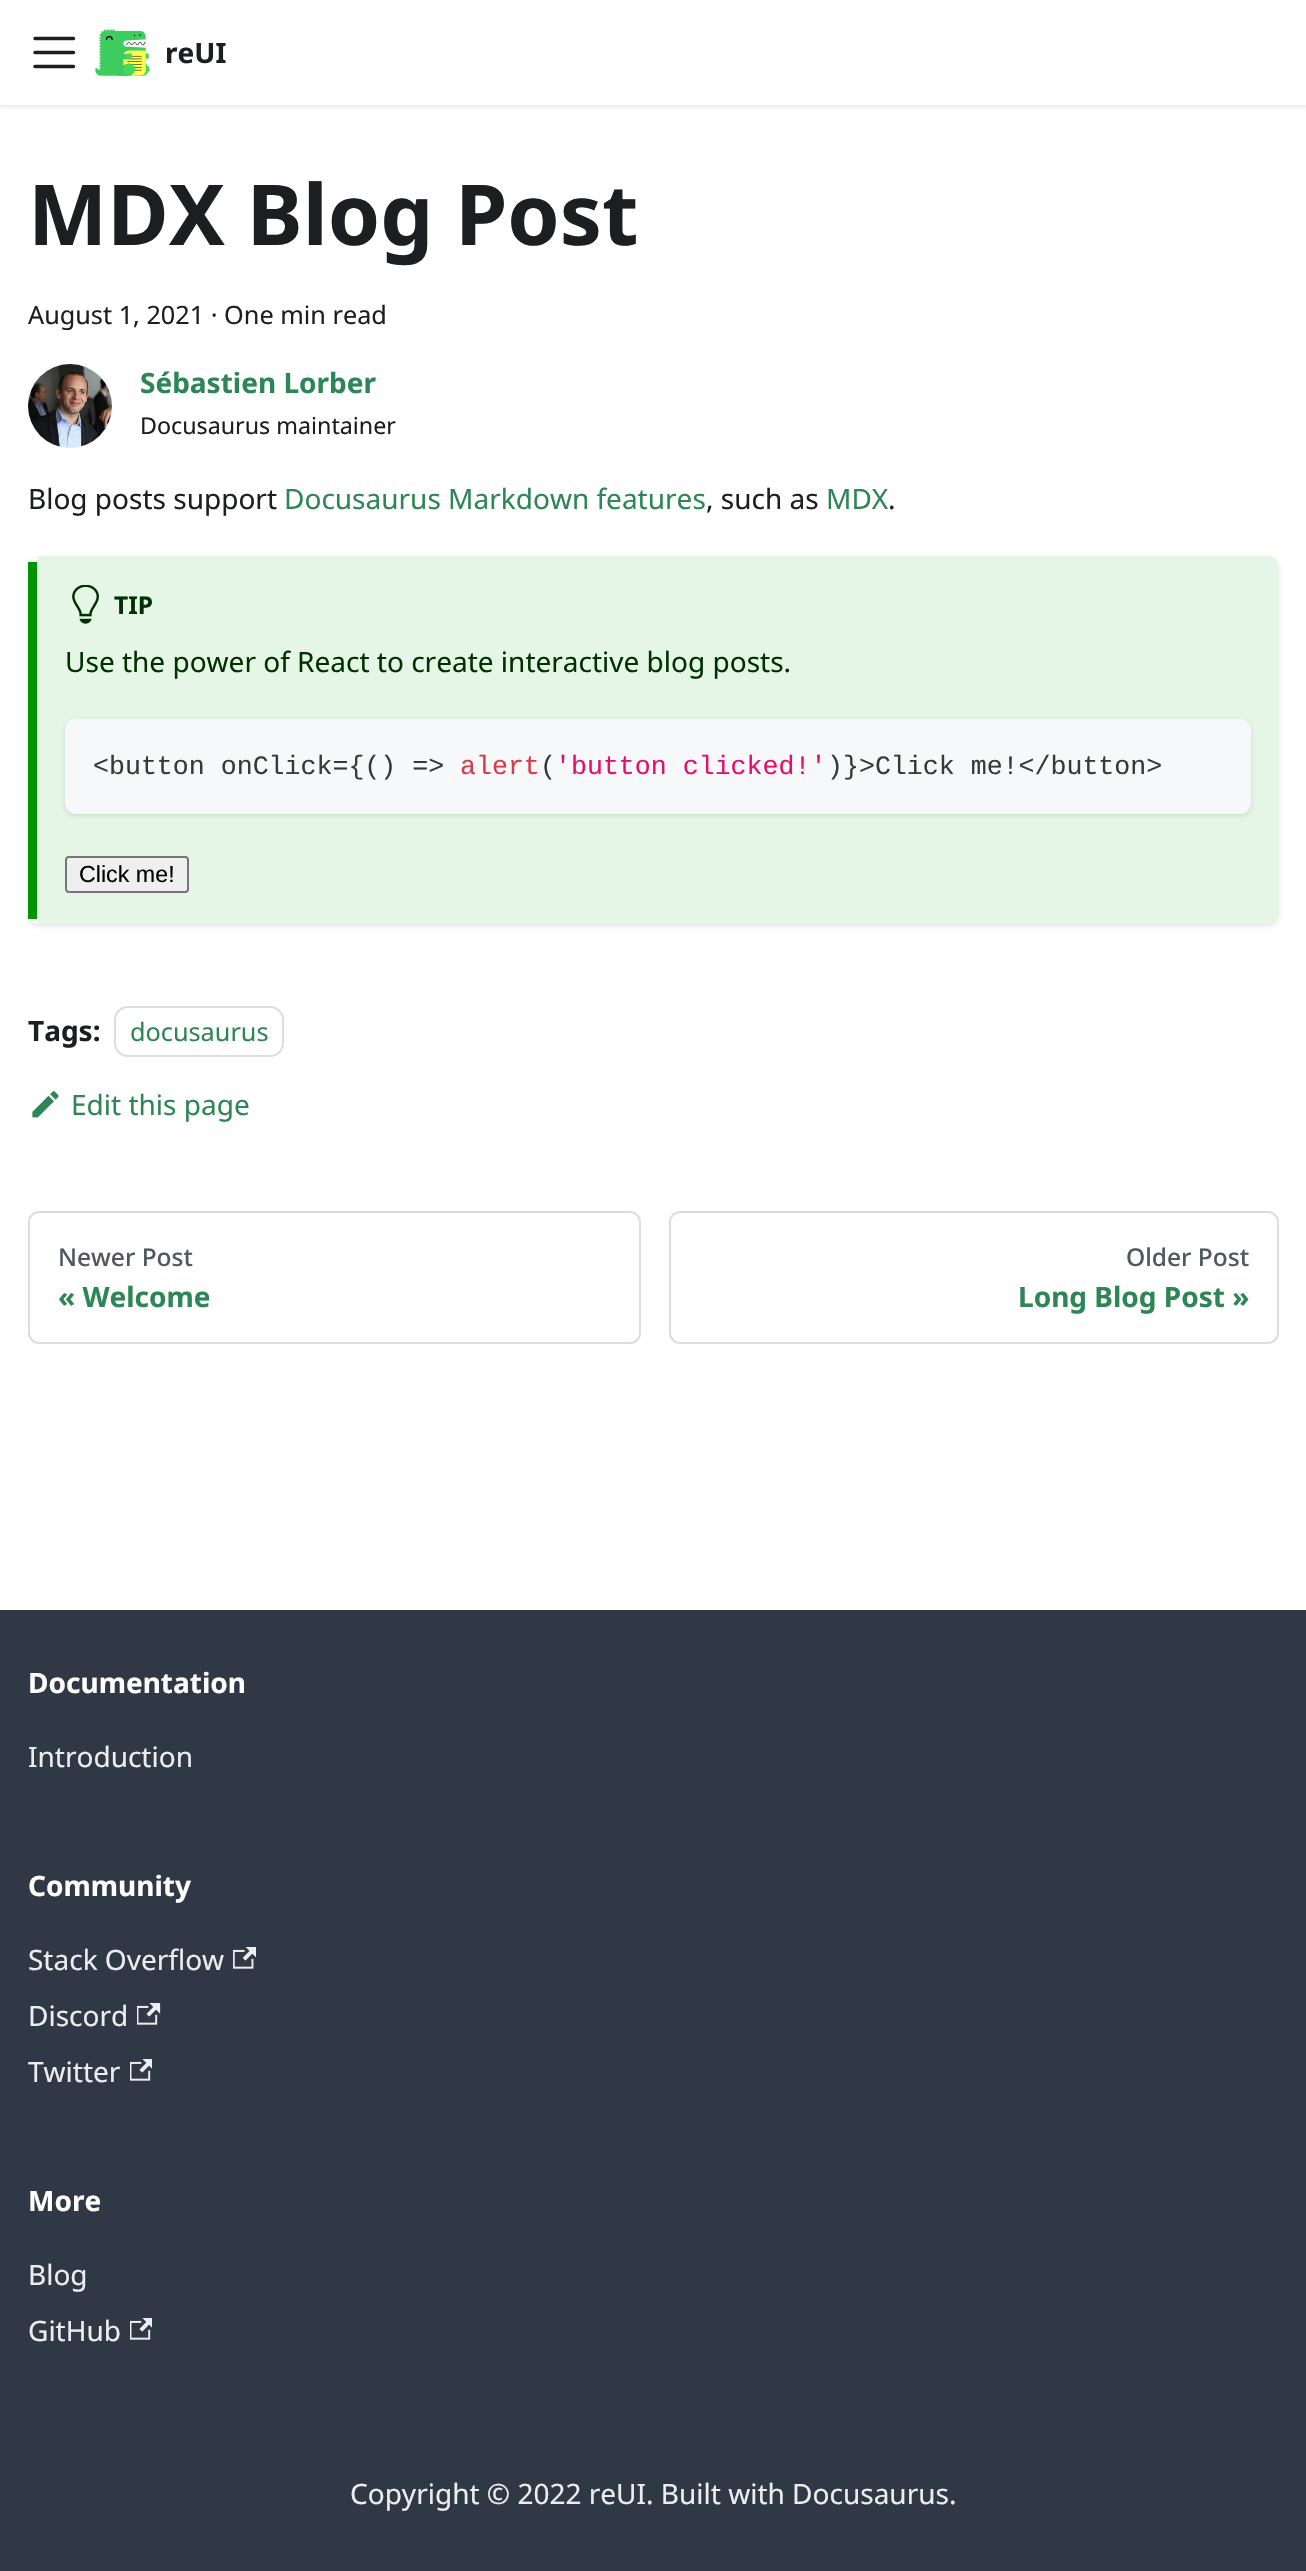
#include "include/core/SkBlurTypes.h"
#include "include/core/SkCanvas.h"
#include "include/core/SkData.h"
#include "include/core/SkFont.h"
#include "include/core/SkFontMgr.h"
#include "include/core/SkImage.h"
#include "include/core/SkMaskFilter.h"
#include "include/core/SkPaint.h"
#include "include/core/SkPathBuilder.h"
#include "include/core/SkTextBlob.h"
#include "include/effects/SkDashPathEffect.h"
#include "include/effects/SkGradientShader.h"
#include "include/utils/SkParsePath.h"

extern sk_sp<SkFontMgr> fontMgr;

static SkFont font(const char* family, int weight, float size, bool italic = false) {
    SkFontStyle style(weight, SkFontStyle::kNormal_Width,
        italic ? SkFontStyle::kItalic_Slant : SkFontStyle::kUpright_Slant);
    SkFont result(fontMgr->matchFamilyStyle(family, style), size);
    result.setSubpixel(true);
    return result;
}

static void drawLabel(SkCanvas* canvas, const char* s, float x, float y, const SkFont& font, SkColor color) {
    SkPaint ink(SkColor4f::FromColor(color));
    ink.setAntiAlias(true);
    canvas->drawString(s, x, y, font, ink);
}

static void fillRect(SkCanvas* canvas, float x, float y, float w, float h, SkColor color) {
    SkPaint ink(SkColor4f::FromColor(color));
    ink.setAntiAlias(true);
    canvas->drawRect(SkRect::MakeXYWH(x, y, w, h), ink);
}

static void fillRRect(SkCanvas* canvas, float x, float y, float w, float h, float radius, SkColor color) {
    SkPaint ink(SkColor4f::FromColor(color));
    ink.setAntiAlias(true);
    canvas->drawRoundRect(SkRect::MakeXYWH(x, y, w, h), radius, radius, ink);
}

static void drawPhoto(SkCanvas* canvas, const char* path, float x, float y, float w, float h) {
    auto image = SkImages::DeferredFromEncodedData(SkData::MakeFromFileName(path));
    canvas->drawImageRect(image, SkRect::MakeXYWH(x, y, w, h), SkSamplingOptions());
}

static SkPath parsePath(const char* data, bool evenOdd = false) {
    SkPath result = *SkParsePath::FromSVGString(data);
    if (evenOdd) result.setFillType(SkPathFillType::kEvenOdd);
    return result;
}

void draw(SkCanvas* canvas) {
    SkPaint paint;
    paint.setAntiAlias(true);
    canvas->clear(0xFFFFFFFF);
    canvas->save();
    canvas->clipRect(SkRect::MakeXYWH(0, 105, 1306, 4));
    paint.setColor(0x1A000000);
    paint.setMaskFilter(SkMaskFilter::MakeBlur(kNormal_SkBlurStyle, 2));
    canvas->drawRect(SkRect::MakeXYWH(0, 2, 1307, 105), paint);
    paint.setMaskFilter(nullptr);
    canvas->restore();
    paint.setStroke(true);
    paint.setStrokeWidth(3.5f);
    paint.setStrokeCap(SkPaint::kRound_Cap);
    paint.setColor(0xFF1C1E21);
    canvas->drawPath(parsePath("M35 38.5H73.5M35 52.5H73.5M35 66.5H73.5"), paint);
    drawPhoto(canvas, "assets/img1.png", 95, 29, 55, 47);
    SkFont font1 = font("Noto Sans", 700, 28);
    drawLabel(canvas, "reUI", 165, 63, font1, 0xFF1C1E21);
    SkFont font2 = font("Noto Sans", 700, 84);
    drawLabel(canvas, "MDX Blog Post", 28, 245, font2, 0xFF1C1E21);
    SkFont font3 = font("Noto Sans", 400, 25.25f);
    drawLabel(canvas, "August 1, 2021 · One min read", 28, 324, font3, 0xFF1C1E21);
    drawPhoto(canvas, "assets/img2.png", 28, 364, 84, 84);
    drawLabel(canvas, "Sébastien Lorber", 140, 393, font1, 0xFF2E8555);
    SkFont font4 = font("Noto Sans", 400, 23.25f);
    drawLabel(canvas, "Docusaurus maintainer", 140, 434, font4, 0xFF1C1E21);
    SkFont font5 = font("Noto Sans", 400, 28);
    drawLabel(canvas, "Blog posts support", 28, 509, font5, 0xFF1C1E21);
    drawLabel(canvas, "Docusaurus Markdown features", 284, 509, font5, 0xFF2E8555);
    drawLabel(canvas, ", such as", 706, 509, font5, 0xFF1C1E21);
    drawLabel(canvas, "MDX", 826, 509, font5, 0xFF2E8555);
    drawLabel(canvas, ".", 888, 509, font5, 0xFF1C1E21);
    canvas->save();
    canvas->clipPath(parsePath("M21 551H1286V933H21ZM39 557H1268C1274 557 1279 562 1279 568V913C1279 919 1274 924 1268 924H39C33 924 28 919 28 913V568C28 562 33 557 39 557Z", true), true);
    paint.setStroke(false);
    paint.setColor(0x1A000000);
    paint.setMaskFilter(SkMaskFilter::MakeBlur(kNormal_SkBlurStyle, 2));
    canvas->drawRoundRect(SkRect::MakeXYWH(28, 558, 1251, 368), 11, 11, paint);
    paint.setMaskFilter(nullptr);
    canvas->restore();
    paint.setColor(0xFFE6F6E6);
    canvas->drawPath(parsePath("M39 556H1268C1274 556 1279 562 1279 568V913C1279 919 1274 924 1268 924H39C38 924 37 919 37 913V568C37 562 38 556 39 556Z"), paint);
    fillRect(canvas, 28, 562, 9, 357, 0xFF009400);
    drawPhoto(canvas, "assets/img3.png", 72, 585, 27, 39);
    SkFont font6 = font("Noto Sans", 700, 24.5f);
    drawLabel(canvas, "TIP", 114, 614, font6, 0xFF003100);
    drawLabel(canvas, "Use the power of React to create interactive blog posts.", 65, 672, font5, 0xFF003100);
    paint.setColor(0x1A000000);
    paint.setMaskFilter(SkMaskFilter::MakeBlur(kNormal_SkBlurStyle, 2));
    canvas->drawRoundRect(SkRect::MakeXYWH(65, 721, 1186, 95), 11, 11, paint);
    paint.setMaskFilter(nullptr);
    fillRRect(canvas, 65, 719, 1186, 95, 11, 0xFFF6F8FA);
    SkFont font7 = font("Liberation Mono", 400, 26.6f);
    drawLabel(canvas, "<button onClick={() =>", 93, 774, font7, 0xFF393A34);
    drawLabel(canvas, "alert", 460, 774, font7, 0xFFD73A49);
    drawLabel(canvas, "(", 540, 774, font7, 0xFF393A34);
    drawLabel(canvas, "'button clicked!'", 555, 774, font7, 0xFFE3116C);
    drawLabel(canvas, ")}>Click me!</button>", 827, 774, font7, 0xFF393A34);
    paint.setColor(0xFFEFEFEF);
    canvas->drawRoundRect(SkRect::MakeXYWH(66, 857, 122, 35), 3, 3, paint);
    paint.setStroke(true);
    paint.setStrokeWidth(2);
    paint.setStrokeCap(SkPaint::kButt_Cap);
    paint.setColor(0xFF767676);
    canvas->drawRoundRect(SkRect::MakeXYWH(66, 857, 122, 35), 3, 3, paint);
    SkFont font8 = font("Liberation Sans", 400, 23.25f);
    drawLabel(canvas, "Click me!", 79, 882, font8, 0xFF000000);
    drawLabel(canvas, "Tags:", 28, 1041, font1, 0xFF1C1E21);
    paint.setColor(0xFFDADDE1);
    canvas->drawRoundRect(SkRect::MakeXYWH(115, 1007, 168, 49), 13, 13, paint);
    drawLabel(canvas, "docusaurus", 130, 1041, font3, 0xFF2E8555);
    drawPhoto(canvas, "assets/img4.png", 32, 1091, 27, 27);
    drawLabel(canvas, "Edit this page", 71, 1115, font5, 0xFF2E8555);
    canvas->drawRoundRect(SkRect::MakeXYWH(29, 1212, 611, 131), 10, 10, paint);
    SkFont font9 = font("Noto Sans", 500, 24.5f);
    drawLabel(canvas, "Newer Post", 58, 1266, font9, 0xFF525860);
    drawLabel(canvas, "« Welcome", 58, 1307, font1, 0xFF2E8555);
    canvas->drawRoundRect(SkRect::MakeXYWH(670, 1212, 608, 131), 10, 10, paint);
    drawLabel(canvas, "Older Post", 1126, 1266, font9, 0xFF525860);
    drawLabel(canvas, "Long Blog Post »", 1018, 1307, font1, 0xFF2E8555);
    fillRect(canvas, 0, 1610, 1306, 961, 0xFF303846);
    drawLabel(canvas, "Documentation", 28, 1693, font1, 0xFFFFFFFF);
    drawLabel(canvas, "Introduction", 28, 1767, font5, 0xFFEBEDF0);
    drawLabel(canvas, "Community", 28, 1896, font1, 0xFFFFFFFF);
    drawLabel(canvas, "Stack Overflow", 28, 1970, font5, 0xFFEBEDF0);
    drawPhoto(canvas, "assets/img5.png", 233, 1947, 23, 22);
    drawLabel(canvas, "Discord", 28, 2026, font5, 0xFFEBEDF0);
    drawPhoto(canvas, "assets/img6.png", 137, 2003, 24, 22);
    drawLabel(canvas, "Twitter", 28, 2082, font5, 0xFFEBEDF0);
    drawPhoto(canvas, "assets/img7.png", 130, 2059, 22, 22);
    drawLabel(canvas, "More", 28, 2211, font1, 0xFFFFFFFF);
    drawLabel(canvas, "Blog", 28, 2285, font5, 0xFFEBEDF0);
    drawLabel(canvas, "GitHub", 28, 2341, font5, 0xFFEBEDF0);
    drawPhoto(canvas, "assets/img7.png", 130, 2318, 22, 22);
    drawLabel(canvas, "Copyright © 2022 reUI. Built with Docusaurus.", 350, 2504, font5, 0xFFEBEDF0);
}
